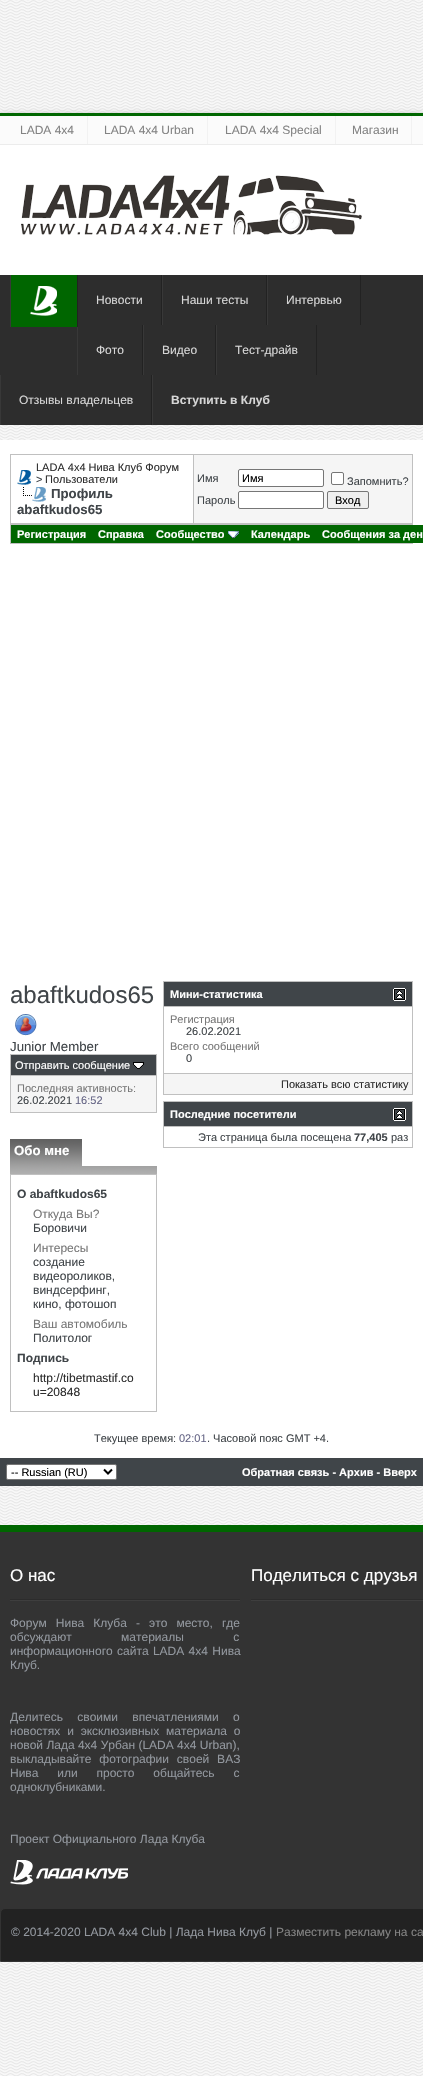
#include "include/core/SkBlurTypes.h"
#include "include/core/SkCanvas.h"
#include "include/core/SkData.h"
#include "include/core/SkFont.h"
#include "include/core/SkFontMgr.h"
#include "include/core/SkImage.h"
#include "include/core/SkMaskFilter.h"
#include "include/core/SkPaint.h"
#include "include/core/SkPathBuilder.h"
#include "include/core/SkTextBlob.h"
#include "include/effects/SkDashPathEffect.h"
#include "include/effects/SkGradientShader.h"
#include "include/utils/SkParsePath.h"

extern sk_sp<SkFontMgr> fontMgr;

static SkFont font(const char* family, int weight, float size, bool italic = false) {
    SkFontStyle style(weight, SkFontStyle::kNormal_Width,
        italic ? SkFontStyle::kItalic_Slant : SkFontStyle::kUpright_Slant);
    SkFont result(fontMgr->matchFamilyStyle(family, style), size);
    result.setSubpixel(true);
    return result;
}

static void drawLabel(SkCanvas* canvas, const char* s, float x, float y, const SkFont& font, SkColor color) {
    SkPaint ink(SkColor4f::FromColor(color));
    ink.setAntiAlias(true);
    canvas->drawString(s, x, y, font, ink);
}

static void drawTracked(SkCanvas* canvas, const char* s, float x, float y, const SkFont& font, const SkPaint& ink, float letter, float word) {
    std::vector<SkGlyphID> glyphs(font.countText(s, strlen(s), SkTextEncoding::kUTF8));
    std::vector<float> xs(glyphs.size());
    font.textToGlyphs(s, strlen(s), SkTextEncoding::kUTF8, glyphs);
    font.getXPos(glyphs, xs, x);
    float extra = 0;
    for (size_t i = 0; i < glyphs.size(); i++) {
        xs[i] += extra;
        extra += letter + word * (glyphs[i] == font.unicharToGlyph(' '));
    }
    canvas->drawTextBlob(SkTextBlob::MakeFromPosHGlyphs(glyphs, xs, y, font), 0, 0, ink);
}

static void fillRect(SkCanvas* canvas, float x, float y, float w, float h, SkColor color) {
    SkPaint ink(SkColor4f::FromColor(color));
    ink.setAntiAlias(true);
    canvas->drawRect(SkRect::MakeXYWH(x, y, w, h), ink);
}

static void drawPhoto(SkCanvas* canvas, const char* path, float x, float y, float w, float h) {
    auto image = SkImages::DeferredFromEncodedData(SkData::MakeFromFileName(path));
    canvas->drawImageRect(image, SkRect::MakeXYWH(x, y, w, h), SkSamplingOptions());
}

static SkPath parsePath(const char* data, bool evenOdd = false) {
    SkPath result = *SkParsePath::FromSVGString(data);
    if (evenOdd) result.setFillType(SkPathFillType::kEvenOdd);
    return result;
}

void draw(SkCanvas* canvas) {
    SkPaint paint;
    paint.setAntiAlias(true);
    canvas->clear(0xFFFFFFFF);
    drawPhoto(canvas, "assets/img1.png", 0, 0, 423, 2076);
    paint.setColor(0xFFCACACA);
    paint.setMaskFilter(SkMaskFilter::MakeBlur(kNormal_SkBlurStyle, 2.5f));
    canvas->drawRect(SkRect::MakeXYWH(0, 113, 423, 229), paint);
    paint.setMaskFilter(nullptr);
    fillRect(canvas, 0, 145, 423, 130, 0xFFFFFFFF);
    fillRect(canvas, 0, 113, 423, 3, 0xFF006600);
    fillRect(canvas, 0, 116, 423, 28, 0xFFFBFBFB);
    fillRect(canvas, 0, 144, 423, 1, 0xFFECECEC);
    SkFont font1 = font("Liberation Sans", 400, 12);
    drawLabel(canvas, "LADA 4x4", 20, 134, font1, 0xFF838383);
    fillRect(canvas, 87, 116, 1, 28, 0xFFF2F2F2);
    drawLabel(canvas, "LADA 4x4 Urban", 104, 134, font1, 0xFF838383);
    fillRect(canvas, 207, 116, 1, 28, 0xFFF2F2F2);
    drawLabel(canvas, "LADA 4x4 Special", 225, 134, font1, 0xFF838383);
    fillRect(canvas, 335, 116, 1, 28, 0xFFF2F2F2);
    drawLabel(canvas, "Магазин", 352, 134, font1, 0xFF838383);
    fillRect(canvas, 411, 116, 1, 28, 0xFFF2F2F2);
    drawPhoto(canvas, "assets/img2.png", 21, 175, 341, 60);
    fillRect(canvas, 0, 275, 423, 150, 0xFF2D2D2D);
    fillRect(canvas, 11, 275, 66, 52, 0xFF006600);
    drawPhoto(canvas, "assets/img3.png", 30, 286, 27, 30);
    fillRect(canvas, 77, 325, 1, 50, 0xFF383838);
    fillRect(canvas, 77, 275, 1, 52, 0xFF222222);
    fillRect(canvas, 10, 275, 1, 52, 0xFF383838);
    fillRect(canvas, 161, 275, 1, 50, 0xFF222222);
    drawLabel(canvas, "Новости", 96, 304, font1, 0xFFD6D6D6);
    fillRect(canvas, 266, 275, 1, 50, 0xFF222222);
    fillRect(canvas, 162, 275, 1, 50, 0xFF383838);
    drawLabel(canvas, "Наши тесты", 181, 304, font1, 0xFFD6D6D6);
    fillRect(canvas, 360, 275, 1, 50, 0xFF222222);
    fillRect(canvas, 267, 275, 1, 50, 0xFF383838);
    drawLabel(canvas, "Интервью", 286, 304, font1, 0xFFD6D6D6);
    fillRect(canvas, 142, 325, 1, 50, 0xFF222222);
    drawLabel(canvas, "Фото", 96, 354, font1, 0xFFD6D6D6);
    fillRect(canvas, 215, 325, 1, 50, 0xFF222222);
    fillRect(canvas, 143, 325, 1, 50, 0xFF383838);
    drawLabel(canvas, "Видео", 162, 354, font1, 0xFFD6D6D6);
    fillRect(canvas, 316, 325, 1, 50, 0xFF222222);
    fillRect(canvas, 216, 325, 1, 50, 0xFF383838);
    drawLabel(canvas, "Тест-драйв", 235, 354, font1, 0xFFD6D6D6);
    fillRect(canvas, 151, 375, 1, 50, 0xFF222222);
    fillRect(canvas, 0, 375, 1, 50, 0xFF383838);
    drawLabel(canvas, "Отзывы владельцев", 19, 404, font1, 0xFFD6D6D6);
    fillRect(canvas, 152, 375, 1, 50, 0xFF383838);
    SkFont font2 = font("Liberation Sans", 700, 12);
    drawLabel(canvas, "Вступить в Клуб", 171, 404, font2, 0xFFD6D6D6);
    fillRect(canvas, 0, 440, 423, 1018, 0xFFFFFFFF);
    fillRect(canvas, 10, 454, 403, 90, 0xFFC0C0C0);
    fillRect(canvas, 11, 455, 182, 68, 0xFFFFFFFF);
    drawPhoto(canvas, "assets/img4.png", 17, 470, 14, 15);
    SkFont font3 = font("Liberation Sans", 400, 11);
    drawLabel(canvas, "LADA 4x4 Нива Клуб Форум", 36, 471, font3, 0xFF2D2D2D);
    drawLabel(canvas, ">", 36, 483, font3, 0xFF404549);
    drawLabel(canvas, "Пользователи", 45, 483, font3, 0xFF2D2D2D);
    drawPhoto(canvas, "assets/img5.png", 23, 487, 23, 15);
    SkFont font4 = font("Liberation Sans", 700, 13.25f);
    drawLabel(canvas, "Профиль", 51, 498, font4, 0xFF404549);
    drawLabel(canvas, "abaftkudos65", 17, 514, font4, 0xFF404549);
    fillRect(canvas, 194, 455, 218, 68, 0xFFF5F5F5);
    drawLabel(canvas, "Имя", 197, 482, font3, 0xFF404549);
    paint.setColor(0xFFFFFFFF);
    canvas->drawRoundRect(SkRect::MakeXYWH(238.5f, 469.5f, 85, 17), 1.5f, 1.5f, paint);
    paint.setStroke(true);
    paint.setStrokeWidth(1);
    paint.setColor(0xFF767676);
    canvas->drawRoundRect(SkRect::MakeXYWH(238.5f, 469.5f, 85, 17), 1.5f, 1.5f, paint);
    drawLabel(canvas, "Имя", 242, 482, font3, 0xFF000000);
    paint.setStroke(false);
    paint.setColor(0xFFFFFFFF);
    canvas->drawRoundRect(SkRect::MakeXYWH(331.5f, 472.5f, 12, 12), 1.5f, 1.5f, paint);
    paint.setStroke(true);
    paint.setColor(0xFF767676);
    canvas->drawRoundRect(SkRect::MakeXYWH(331.5f, 472.5f, 12, 12), 1.5f, 1.5f, paint);
    drawLabel(canvas, "Запомнить?", 347, 485, font3, 0xFF404549);
    drawLabel(canvas, "Пароль", 197, 504, font3, 0xFF404549);
    paint.setStroke(false);
    paint.setColor(0xFFFFFFFF);
    canvas->drawRoundRect(SkRect::MakeXYWH(238.5f, 491.5f, 85, 17), 1.5f, 1.5f, paint);
    paint.setStroke(true);
    paint.setColor(0xFF767676);
    canvas->drawRoundRect(SkRect::MakeXYWH(238.5f, 491.5f, 85, 17), 1.5f, 1.5f, paint);
    paint.setStroke(false);
    paint.setColor(0xFFEFEFEF);
    canvas->drawRoundRect(SkRect::MakeXYWH(327.5f, 491.5f, 41, 17), 1.5f, 1.5f, paint);
    paint.setStroke(true);
    paint.setColor(0xFF767676);
    canvas->drawRoundRect(SkRect::MakeXYWH(327.5f, 491.5f, 41, 17), 1.5f, 1.5f, paint);
    drawLabel(canvas, "Вход", 335, 504, font3, 0xFF000000);
    fillRect(canvas, 11, 525, 412, 18, 0xFF006600);
    SkFont font5 = font("Liberation Sans", 700, 11);
    drawLabel(canvas, "Регистрация", 17, 538, font5, 0xFFFFFFFF);
    drawLabel(canvas, "Справка", 98, 538, font5, 0xFFFFFFFF);
    drawLabel(canvas, "Сообщество", 156, 538, font5, 0xFFFFFFFF);
    drawPhoto(canvas, "assets/img6.png", 228, 531, 11, 7);
    drawLabel(canvas, "Календарь", 251, 538, font5, 0xFFFFFFFF);
    drawLabel(canvas, "Сообщения за ден", 322, 538, font5, 0xFFFFFFFF);
    SkFont font6 = font("Liberation Sans", 400, 24);
    drawLabel(canvas, "abaftkudos65", 10, 1003, font6, 0xFF404549);
    drawPhoto(canvas, "assets/img7.png", 15, 1014, 22, 22);
    SkFont font7 = font("Liberation Sans", 400, 13.25f);
    drawLabel(canvas, "Junior Member", 10, 1051, font7, 0xFF404549);
    fillRect(canvas, 10, 1054, 147, 59, 0xFFC0C0C0);
    fillRect(canvas, 11, 1055, 145, 20, 0xFF404549);
    drawLabel(canvas, "Отправить сообщение", 15, 1069, font3, 0xFFFFFFFF);
    drawPhoto(canvas, "assets/img8.png", 133, 1062, 11, 7);
    fillRect(canvas, 11, 1076, 145, 36, 0xFFF5F5F5);
    drawLabel(canvas, "Последняя активность:", 17, 1092, font3, 0xFF777777);
    drawLabel(canvas, "26.02.2021", 17, 1104, font3, 0xFF404549);
    drawLabel(canvas, "16:52", 75, 1104, font3, 0xFF666686);
    drawPhoto(canvas, "assets/img10.png", 10, 1166, 147, 8);
    drawPhoto(canvas, "assets/img9.png", 10, 1139, 72, 28);
    drawLabel(canvas, "Обо мне", 14, 1155, font4, 0xFFFFFFFF);
    fillRect(canvas, 10, 1174, 147, 238, 0xFFC0C0C0);
    fillRect(canvas, 11, 1175, 145, 236, 0xFFFFFFFF);
    drawLabel(canvas, "О abaftkudos65", 17, 1198, font2, 0xFF404549);
    drawLabel(canvas, "Откуда Вы?", 33, 1218, font1, 0xFF777777);
    drawLabel(canvas, "Боровичи", 33, 1232, font1, 0xFF404549);
    drawLabel(canvas, "Интересы", 33, 1252, font1, 0xFF777777);
    drawLabel(canvas, "создание", 33, 1266, font1, 0xFF404549);
    drawLabel(canvas, "видеороликов,", 33, 1280, font1, 0xFF404549);
    drawLabel(canvas, "виндсерфинг,", 33, 1294, font1, 0xFF404549);
    drawLabel(canvas, "кино, фотошоп", 33, 1308, font1, 0xFF404549);
    drawLabel(canvas, "Ваш автомобиль", 33, 1328, font1, 0xFF777777);
    drawLabel(canvas, "Политолог", 33, 1342, font1, 0xFF404549);
    drawLabel(canvas, "Подпись", 17, 1362, font2, 0xFF404549);
    drawLabel(canvas, "http://tibetmastif.co", 33, 1382, font1, 0xFF2D2D2D);
    drawLabel(canvas, "u=20848", 33, 1396, font1, 0xFF2D2D2D);
    fillRect(canvas, 163, 981, 250, 114, 0xFFC0C0C0);
    fillRect(canvas, 164, 982, 248, 24, 0xFF404549);
    drawLabel(canvas, "Мини-статистика", 170, 998, font5, 0xFFFFFFFF);
    drawPhoto(canvas, "assets/img11.png", 393, 988, 13, 13);
    fillRect(canvas, 164, 1007, 248, 66, 0xFFFFFFFF);
    drawLabel(canvas, "Регистрация", 170, 1023, font3, 0xFF777777);
    drawLabel(canvas, "26.02.2021", 186, 1035, font3, 0xFF404549);
    drawLabel(canvas, "Всего сообщений", 170, 1050, font3, 0xFF777777);
    drawLabel(canvas, "0", 186, 1062, font3, 0xFF404549);
    fillRect(canvas, 164, 1074, 248, 20, 0xFFF5F5F5);
    drawLabel(canvas, "Показать всю статистику", 281, 1088, font3, 0xFF2D2D2D);
    fillRect(canvas, 163, 1101, 250, 47, 0xFFC0C0C0);
    fillRect(canvas, 164, 1102, 248, 24, 0xFF404549);
    drawLabel(canvas, "Последние посетители", 170, 1118, font5, 0xFFFFFFFF);
    drawPhoto(canvas, "assets/img11.png", 393, 1108, 13, 13);
    fillRect(canvas, 164, 1127, 248, 20, 0xFFFFFFFF);
    drawLabel(canvas, "Эта страница была посещена", 198, 1141, font3, 0xFF404549);
    drawLabel(canvas, "77,405", 354, 1141, font5, 0xFF404549);
    drawLabel(canvas, "раз", 391, 1141, font3, 0xFF404549);
    drawLabel(canvas, "Текущее время:", 94, 1442, font3, 0xFF404549);
    drawLabel(canvas, "02:01", 179, 1442, font3, 0xFF666686);
    drawLabel(canvas, ". Часовой пояс GMT +4.", 207, 1442, font3, 0xFF404549);
    fillRect(canvas, 0, 1458, 423, 28, 0xFF404549);
    paint.setStroke(false);
    paint.setColor(0xFFFFFFFF);
    canvas->drawRoundRect(SkRect::MakeXYWH(6.5f, 1464.5f, 110, 15), 1.5f, 1.5f, paint);
    paint.setStroke(true);
    paint.setColor(0xFF767676);
    canvas->drawRoundRect(SkRect::MakeXYWH(6.5f, 1464.5f, 110, 15), 1.5f, 1.5f, paint);
    paint.setStrokeWidth(2);
    paint.setColor(0xFF000000);
    canvas->drawPath(parsePath("M104 1469.5L108 1473.5L112 1469.5"), paint);
    drawLabel(canvas, "-- Russian (RU)", 11, 1476, font3, 0xFF000000);
    drawLabel(canvas, "Обратная связь - Архив - Вверх", 242, 1476, font5, 0xFFFFFFFF);
    fillRect(canvas, 0, 1532, 423, 381, 0xFF333333);
    fillRect(canvas, 0, 1525, 423, 7, 0xFF006600);
    drawPhoto(canvas, "assets/img12.png", 10, 1599, 230, 2);
    SkFont font8 = font("Liberation Sans", 400, 17);
    drawLabel(canvas, "О нас", 10, 1581, font8, 0xFFFFFFFF);
    paint.setStroke(false);
    paint.setColor(0xFF92979E);
    drawTracked(canvas, "Форум Нива Клуба - это место, где", 10, 1627, font1, paint, 0, 5.75f);
    drawTracked(canvas, "обсуждают материалы с", 10, 1641, font1, paint, 0, 46);
    drawTracked(canvas, "информационного сайта LADA 4x4 Нива", 10, 1655, font1, paint, 0, 1);
    drawLabel(canvas, "Клуб.", 10, 1669, font1, 0xFF92979E);
    drawTracked(canvas, "Делитесь своими впечатлениями о", 10, 1721, font1, paint, 0, 11);
    drawTracked(canvas, "новостях и эксклюзивных материала о", 10, 1735, font1, paint, 0, 3.5f);
    drawLabel(canvas, "новой Лада 4х4 Урбан (LADA 4x4 Urban),", 10, 1749, font1, 0xFF92979E);
    drawTracked(canvas, "выкладывайте фотографии своей ВАЗ", 10, 1763, font1, paint, 0, 4.5f);
    drawTracked(canvas, "Нива или просто общайтесь с", 10, 1777, font1, paint, 0, 15.5f);
    drawLabel(canvas, "одноклубниками.", 10, 1791, font1, 0xFF92979E);
    drawLabel(canvas, "Проект Официального Лада Клуба", 10, 1843, font1, 0xFF92979E);
    drawPhoto(canvas, "assets/img13.png", 10, 1860, 118, 25);
    drawPhoto(canvas, "assets/img14.png", 251, 1599, 172, 2);
    drawLabel(canvas, "Поделиться с друзья", 251, 1581, font8, 0xFFFFFFFF);
    paint.setColor(0xFF222222);
    canvas->drawPath(parsePath("M5 1908.5H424C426.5 1908.5 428.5 1910.5 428.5 1913V1961.5H.5V1913C.5 1910.5 2.5 1908.5 5 1908.5Z"), paint);
    paint.setStroke(true);
    paint.setStrokeWidth(1);
    paint.setColor(0xFF333333);
    canvas->drawPath(parsePath("M5 1908.5H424C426.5 1908.5 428.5 1910.5 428.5 1913V1961.5H.5V1913C.5 1910.5 2.5 1908.5 5 1908.5Z"), paint);
    drawLabel(canvas, "© 2014-2020 LADA 4x4 Club | Лада Нива Клуб |", 11, 1936, font1, 0xFF92979E);
    drawLabel(canvas, "Разместить рекламу на са", 276, 1936, font1, 0xFF838383);
}
